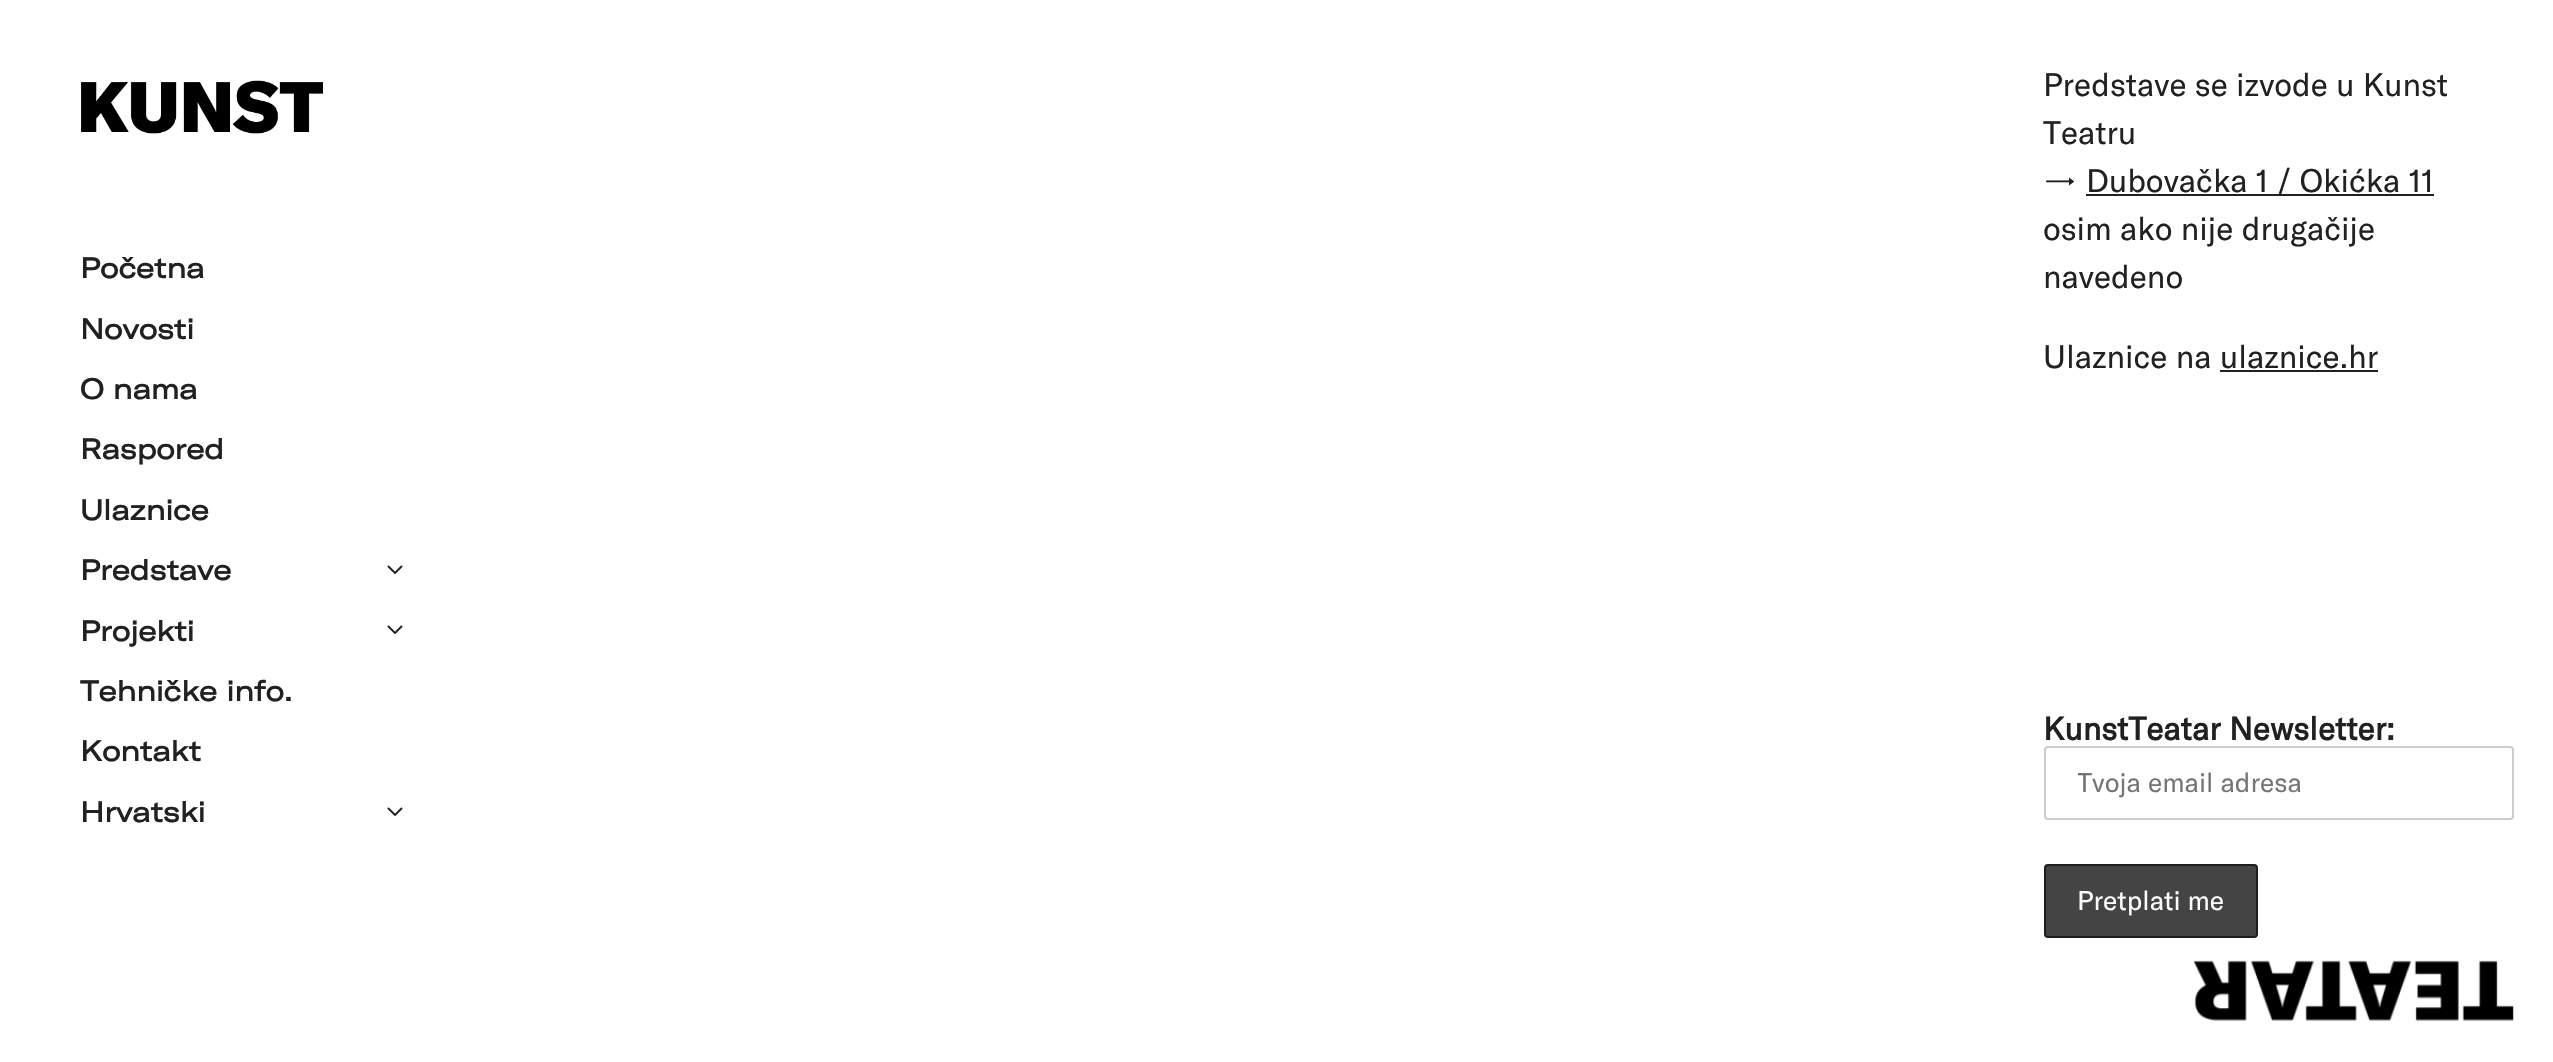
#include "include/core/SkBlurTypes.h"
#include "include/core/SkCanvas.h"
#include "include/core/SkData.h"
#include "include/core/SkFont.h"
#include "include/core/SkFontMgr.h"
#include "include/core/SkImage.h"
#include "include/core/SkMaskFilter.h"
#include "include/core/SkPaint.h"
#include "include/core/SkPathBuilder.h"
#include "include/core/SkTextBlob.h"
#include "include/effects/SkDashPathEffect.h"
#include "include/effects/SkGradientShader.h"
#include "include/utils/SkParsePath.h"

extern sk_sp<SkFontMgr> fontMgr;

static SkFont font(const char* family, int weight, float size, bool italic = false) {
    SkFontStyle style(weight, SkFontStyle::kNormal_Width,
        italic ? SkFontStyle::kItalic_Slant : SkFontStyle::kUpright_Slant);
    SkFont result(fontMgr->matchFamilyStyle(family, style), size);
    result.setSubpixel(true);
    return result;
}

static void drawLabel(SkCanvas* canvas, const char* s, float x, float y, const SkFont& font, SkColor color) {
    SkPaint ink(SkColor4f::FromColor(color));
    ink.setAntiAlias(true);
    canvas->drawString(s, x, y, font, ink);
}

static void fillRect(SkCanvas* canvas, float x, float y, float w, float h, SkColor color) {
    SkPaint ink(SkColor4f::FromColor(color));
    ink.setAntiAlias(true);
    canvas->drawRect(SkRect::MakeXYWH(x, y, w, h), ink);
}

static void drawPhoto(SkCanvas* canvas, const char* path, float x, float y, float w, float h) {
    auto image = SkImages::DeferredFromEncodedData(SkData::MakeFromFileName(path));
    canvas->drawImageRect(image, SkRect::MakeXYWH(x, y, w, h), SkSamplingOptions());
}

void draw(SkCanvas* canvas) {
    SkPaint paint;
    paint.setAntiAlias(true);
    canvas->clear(0xFFFFFFFF);
    drawPhoto(canvas, "assets/img1.png", 81, 80, 242, 54);
    SkFont font1 = font("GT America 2", 700, 28);
    drawLabel(canvas, "Početna", 80, 278, font1, 0xFF212121);
    drawLabel(canvas, "Novosti", 80, 339, font1, 0xFF212121);
    drawLabel(canvas, "O nama", 80, 399, font1, 0xFF212121);
    drawLabel(canvas, "Raspored", 80, 459, font1, 0xFF212121);
    drawLabel(canvas, "Ulaznice", 80, 520, font1, 0xFF212121);
    drawLabel(canvas, "Predstave", 80, 580, font1, 0xFF212121);
    drawPhoto(canvas, "assets/img2.png", 387, 565, 16, 9);
    drawLabel(canvas, "Projekti", 80, 641, font1, 0xFF212121);
    drawPhoto(canvas, "assets/img2.png", 387, 625, 16, 9);
    drawLabel(canvas, "Tehničke info.", 80, 701, font1, 0xFF212121);
    drawLabel(canvas, "Kontakt", 80, 761, font1, 0xFF212121);
    drawLabel(canvas, "Hrvatski", 80, 822, font1, 0xFF212121);
    drawPhoto(canvas, "assets/img2.png", 387, 807, 16, 9);
    SkFont font2 = font("GT America", 400, 32);
    drawLabel(canvas, "Predstave se izvode u Kunst", 2043, 96, font2, 0xFF212121);
    drawLabel(canvas, "Teatru", 2043, 144, font2, 0xFF212121);
    drawLabel(canvas, "→", 2043, 192, font2, 0xFF212121);
    fillRect(canvas, 2086, 194, 348, 2, 0xFF212121);
    drawLabel(canvas, "Dubovačka 1 / Okićka 11", 2086, 192, font2, 0xFF212121);
    drawLabel(canvas, "osim ako nije drugačije", 2043, 240, font2, 0xFF212121);
    drawLabel(canvas, "navedeno", 2043, 288, font2, 0xFF212121);
    drawLabel(canvas, "Ulaznice na ulaznice.hr", 2043, 368, font2, 0xFF212121);
    fillRect(canvas, 2220, 370, 158, 2, 0xFF212121);
    SkFont font3 = font("GT America", 700, 32);
    drawLabel(canvas, "KunstTeatar Newsletter:", 2043, 740, font3, 0xFF212121);
    paint.setStroke(true);
    paint.setStrokeWidth(2);
    paint.setColor(0xFFCCCCCC);
    canvas->drawRoundRect(SkRect::MakeXYWH(2045, 747, 468, 72), 3, 3, paint);
    canvas->save();
    canvas->clipRect(SkRect::MakeXYWH(2078, 766, 402, 32));
    SkFont font4 = font("GT America", 400, 26.75f);
    drawLabel(canvas, "Tvoja email adresa", 2077, 792, font4, 0xFF757575);
    canvas->restore();
    paint.setStroke(false);
    paint.setColor(0xFF444444);
    canvas->drawRoundRect(SkRect::MakeXYWH(2045, 865, 212, 72), 3, 3, paint);
    paint.setStroke(true);
    paint.setColor(0xFF1E1E1E);
    canvas->drawRoundRect(SkRect::MakeXYWH(2045, 865, 212, 72), 3, 3, paint);
    drawLabel(canvas, "Pretplati me", 2077, 910, font4, 0xFFFFFFFF);
    drawPhoto(canvas, "assets/img3.png", 2194, 960, 320, 62);
}
